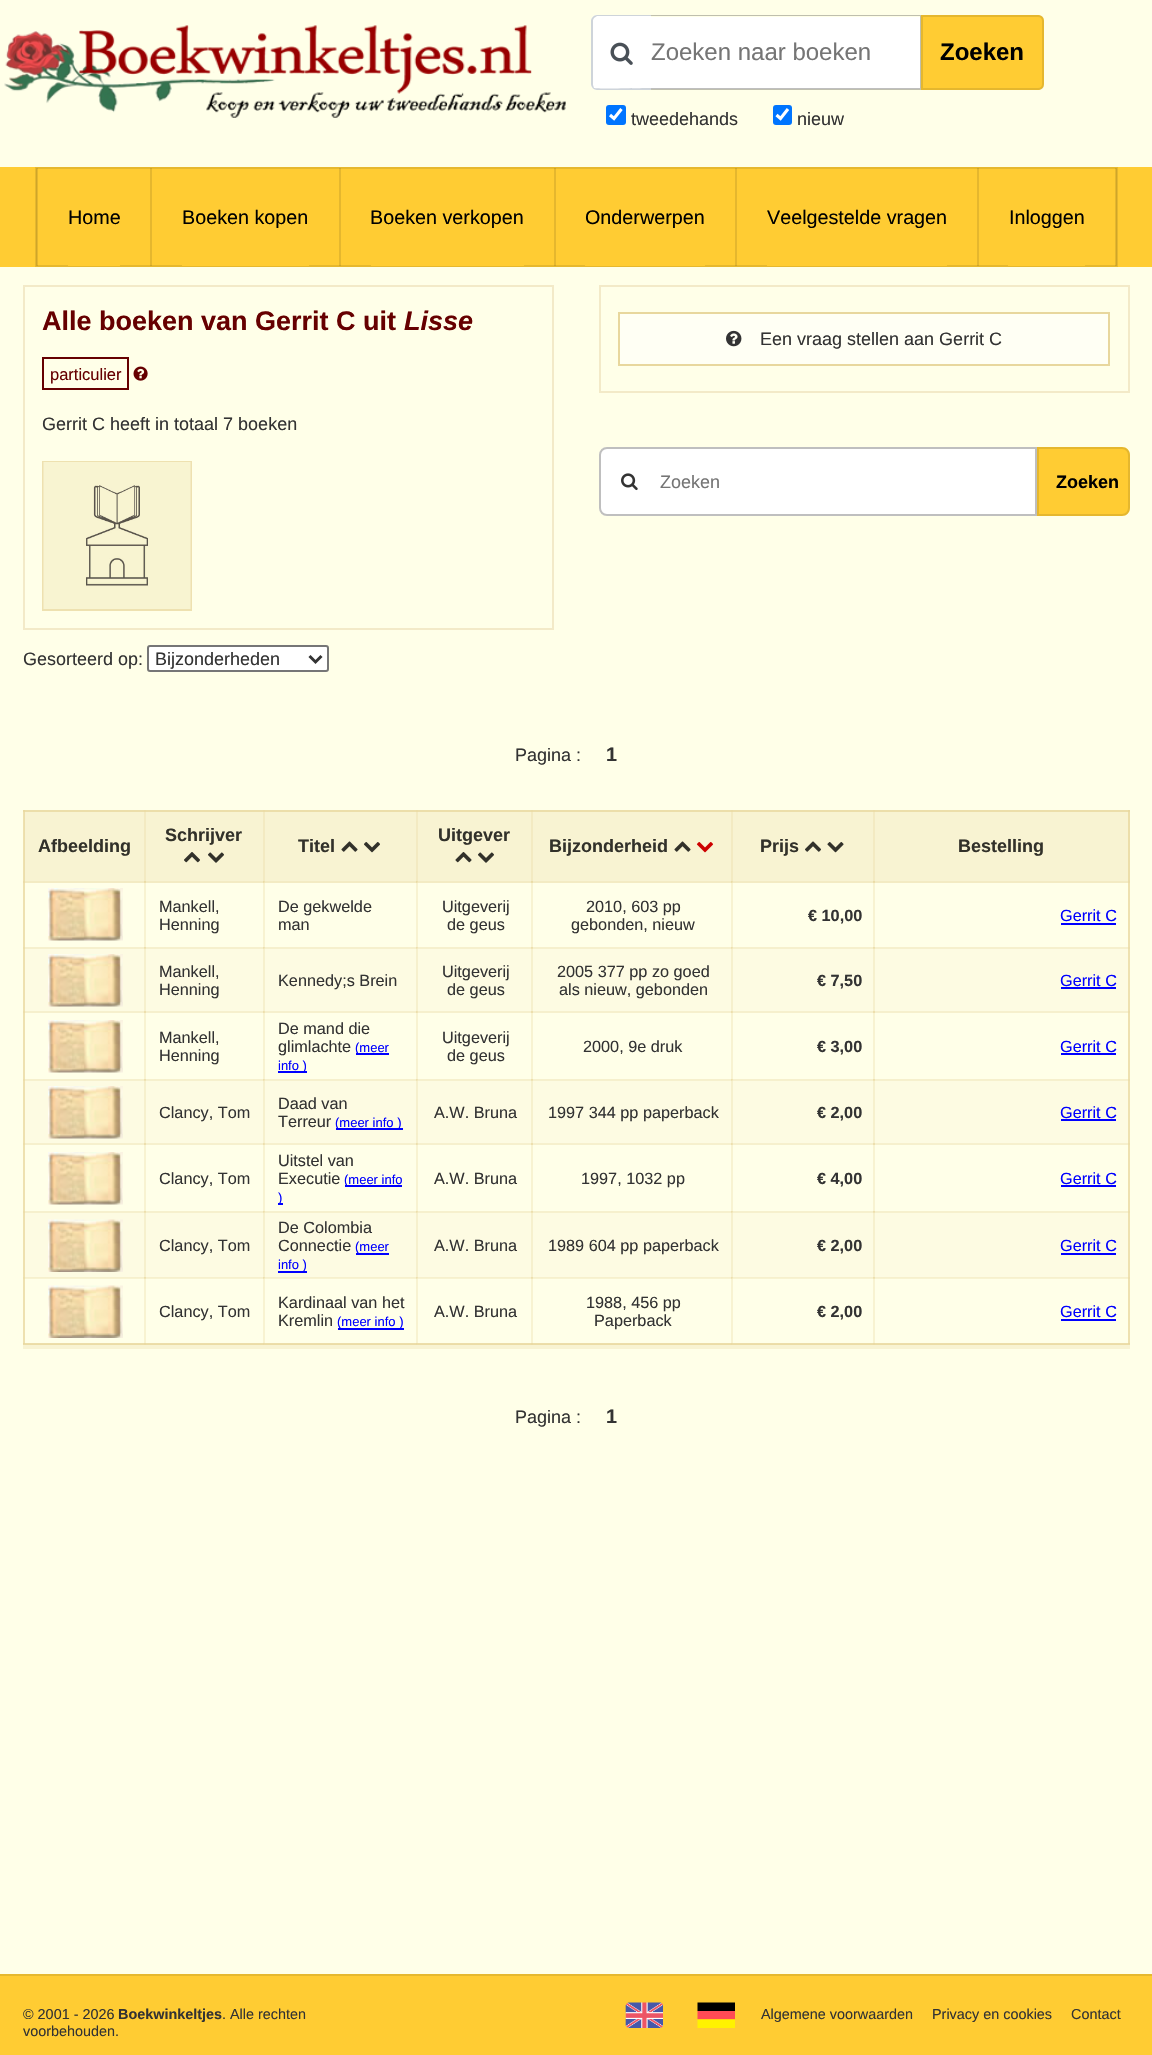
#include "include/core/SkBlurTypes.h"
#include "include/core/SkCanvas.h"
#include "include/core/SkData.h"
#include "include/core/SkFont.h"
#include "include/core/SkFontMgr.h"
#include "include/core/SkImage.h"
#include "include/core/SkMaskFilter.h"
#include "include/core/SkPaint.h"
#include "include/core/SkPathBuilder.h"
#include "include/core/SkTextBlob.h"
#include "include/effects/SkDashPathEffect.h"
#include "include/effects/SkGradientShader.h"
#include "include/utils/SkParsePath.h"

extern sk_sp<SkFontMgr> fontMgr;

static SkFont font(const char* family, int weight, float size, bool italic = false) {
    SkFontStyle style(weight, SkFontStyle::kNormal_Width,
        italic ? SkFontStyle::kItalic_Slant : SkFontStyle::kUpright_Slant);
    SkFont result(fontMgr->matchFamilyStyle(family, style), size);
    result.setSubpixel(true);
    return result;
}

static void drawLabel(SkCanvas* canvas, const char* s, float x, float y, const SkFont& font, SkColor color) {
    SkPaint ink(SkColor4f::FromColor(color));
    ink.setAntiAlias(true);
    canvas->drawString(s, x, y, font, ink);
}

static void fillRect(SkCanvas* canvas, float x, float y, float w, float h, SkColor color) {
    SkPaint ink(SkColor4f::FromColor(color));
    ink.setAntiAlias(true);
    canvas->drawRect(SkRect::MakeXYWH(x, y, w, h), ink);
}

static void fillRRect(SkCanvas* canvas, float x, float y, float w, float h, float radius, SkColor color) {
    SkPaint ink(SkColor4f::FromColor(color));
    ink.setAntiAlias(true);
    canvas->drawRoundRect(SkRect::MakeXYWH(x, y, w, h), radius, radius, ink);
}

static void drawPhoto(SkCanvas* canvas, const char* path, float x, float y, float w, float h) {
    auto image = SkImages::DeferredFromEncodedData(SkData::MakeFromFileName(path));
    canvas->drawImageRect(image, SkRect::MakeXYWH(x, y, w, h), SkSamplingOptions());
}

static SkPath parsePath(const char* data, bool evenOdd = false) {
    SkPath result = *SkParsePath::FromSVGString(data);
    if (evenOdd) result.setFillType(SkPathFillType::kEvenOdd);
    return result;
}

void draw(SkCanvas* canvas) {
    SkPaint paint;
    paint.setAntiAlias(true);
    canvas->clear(0xFFFFFFE8);
    fillRect(canvas, 1128, 881, 2, 463, 0xFFEEE1B0);
    fillRect(canvas, 23, 810, 1, 2, 0xFFEEE1B0);
    drawPhoto(canvas, "assets/img1.png", 4, 25, 562, 93);
    paint.setColor(0xFFFFFFFF);
    canvas->drawPath(parsePath("M597 15H651V90H597C593.5 90 591 87.5 591 84V21C591 17.5 593.5 15 597 15Z"), paint);
    paint.setColor(0xFFCED4DA);
    canvas->drawPath(parsePath("M597 15H651V90H597C594 90 591 87 591 84V21C591 18 594 15 597 15ZM597 16H651V88C644 88 597 89 594 88L593 85V20L594 18Z", true), paint);
    drawPhoto(canvas, "assets/img2.png", 610, 42, 23, 23);
    fillRect(canvas, 651, 17, 269, 72, 0xFFFFFFFF);
    paint.setColor(0xFFBFBFAE);
    canvas->drawPath(parsePath("M651 15H921L920 16H651Z"), paint);
    paint.setColor(0x40000000);
    canvas->drawPath(parsePath("M921 15V90L920 88V16Z"), paint);
    canvas->drawPath(parsePath("M921 90H651V88H920Z"), paint);
    SkFont font1 = font("Liberation Sans", 400, 24);
    drawLabel(canvas, "Zoeken naar boeken", 651, 60, font1, 0xFF757575);
    paint.setColor(0xFFFFCC33);
    canvas->drawPath(parsePath("M921 15H1038C1041.5 15 1044 17.5 1044 21V84C1044 87.5 1041.5 90 1038 90H921Z"), paint);
    paint.setStroke(true);
    paint.setStrokeWidth(2);
    paint.setColor(0x1A000000);
    canvas->drawPath(parsePath("M922 16H1038C1041 16 1043 18 1043 21V84C1043 87 1041 89 1038 89H922Z"), paint);
    SkFont font2 = font("Liberation Sans", 700, 24);
    drawLabel(canvas, "Zoeken", 940, 60, font2, 0xFF000000);
    fillRRect(canvas, 606, 105, 20, 20, 3, 0xFF0075FF);
    paint.setStrokeWidth(3.1f);
    paint.setColor(0xFFFFFFFF);
    canvas->drawPath(parsePath("M610 115L614 118.5L621.5 109"), paint);
    SkFont font3 = font("Liberation Sans", 400, 18);
    drawLabel(canvas, "tweedehands", 631, 125, font3, 0xFF333333);
    fillRRect(canvas, 773, 105, 19, 20, 3, 0xFF0075FF);
    canvas->drawPath(parsePath("M776.5 115L780.5 118.5L788 109"), paint);
    drawLabel(canvas, "nieuw", 797, 125, font3, 0xFF333333);
    fillRect(canvas, 0, 167, 1152, 100, 0xFFFFCC33);
    paint.setStrokeWidth(2);
    paint.setColor(0xFFE6B82E);
    canvas->drawRect(SkRect::MakeXYWH(36, 168, 1081, 98), paint);
    fillRect(canvas, 150, 168, 2, 98, 0x1A000000);
    fillRect(canvas, 36, 168, 2, 98, 0x1A000000);
    fillRect(canvas, 68, 265, 52, 1, 0xFFFFCC33);
    SkFont font4 = font("Liberation Sans", 400, 19.75f);
    drawLabel(canvas, "Home", 68, 224, font4, 0xFF000000);
    fillRect(canvas, 339, 168, 2, 98, 0x1A000000);
    fillRect(canvas, 182, 265, 127, 1, 0xFFFFCC33);
    drawLabel(canvas, "Boeken kopen", 182, 224, font4, 0xFF000000);
    fillRect(canvas, 554, 168, 2, 98, 0x1A000000);
    fillRect(canvas, 371, 265, 153, 1, 0xFFFFCC33);
    drawLabel(canvas, "Boeken verkopen", 370, 224, font4, 0xFF000000);
    fillRect(canvas, 735, 168, 2, 98, 0x1A000000);
    fillRect(canvas, 585, 265, 120, 1, 0xFFFFCC33);
    drawLabel(canvas, "Onderwerpen", 585, 224, font4, 0xFF000000);
    fillRect(canvas, 977, 168, 2, 98, 0x1A000000);
    fillRect(canvas, 767, 265, 180, 1, 0xFFFFCC33);
    drawLabel(canvas, "Veelgestelde vragen", 767, 224, font4, 0xFF000000);
    fillRect(canvas, 1115, 168, 2, 98, 0x1A000000);
    fillRect(canvas, 1008, 265, 77, 1, 0xFFFFCC33);
    drawLabel(canvas, "Inloggen", 1009, 224, font4, 0xFF000000);
    paint.setColor(0xFFF3EAC8);
    canvas->drawRect(SkRect::MakeXYWH(24, 286, 529, 343), paint);
    SkFont font5 = font("Liberation Sans", 700, 27);
    drawLabel(canvas, "Alle boeken van Gerrit C uit", 42, 330, font5, 0xFF660000);
    SkFont font6 = font("Liberation Sans", 700, 27, true);
    drawLabel(canvas, "Lisse", 404, 330, font6, 0xFF660000);
    paint.setColor(0xFF660000);
    canvas->drawRect(SkRect::MakeXYWH(43, 358, 85, 31), paint);
    SkFont font7 = font("Liberation Sans", 400, 16.5f);
    drawLabel(canvas, "particulier", 50, 380, font7, 0xFF660000);
    drawPhoto(canvas, "assets/img3.png", 133, 366, 15, 15);
    drawLabel(canvas, "Gerrit C heeft in totaal 7 boeken", 42, 430, font3, 0xFF333333);
    paint.setColor(0xFFEEE1B0);
    canvas->drawRect(SkRect::MakeXYWH(43, 462, 148, 148), paint);
    drawPhoto(canvas, "assets/img4.png", 43, 462, 148, 147);
    paint.setColor(0xFFF3EAC8);
    canvas->drawRect(SkRect::MakeXYWH(600, 286, 529, 106), paint);
    paint.setStroke(false);
    paint.setColor(0xFFFFFFF4);
    canvas->drawRect(SkRect::MakeXYWH(619, 313, 490, 52), paint);
    paint.setStroke(true);
    paint.setColor(0xFFE8D79D);
    canvas->drawRect(SkRect::MakeXYWH(619, 313, 490, 52), paint);
    drawPhoto(canvas, "assets/img5.png", 726, 330, 16, 17);
    drawLabel(canvas, "Een vraag stellen aan Gerrit C", 760, 345, font3, 0xFF333333);
    paint.setStroke(false);
    paint.setColor(0xFFFFFFFF);
    canvas->drawPath(parsePath("M607 447H1037V516H607C602.5 516 599 512.5 599 508V455C599 450.5 602.5 447 607 447Z"), paint);
    paint.setStroke(true);
    paint.setColor(0x40000000);
    canvas->drawPath(parsePath("M607 448H1036V515H607C603 515 600 512 600 508V455C600 451 603 448 607 448Z"), paint);
    drawPhoto(canvas, "assets/img6.png", 621, 473, 17, 18);
    drawLabel(canvas, "Zoeken", 660, 488, font3, 0xFF757575);
    paint.setStroke(false);
    paint.setColor(0xFFFFCC33);
    canvas->drawPath(parsePath("M1037 447H1122C1126.5 447 1130 450.5 1130 455V508C1130 512.5 1126.5 516 1122 516H1037Z"), paint);
    paint.setStroke(true);
    paint.setColor(0x1A000000);
    canvas->drawPath(parsePath("M1038 448H1122C1126 448 1129 451 1129 455V508C1129 512 1126 515 1122 515H1038Z"), paint);
    SkFont font8 = font("Liberation Sans", 700, 18);
    drawLabel(canvas, "Zoeken", 1056, 488, font8, 0xFF000000);
    drawLabel(canvas, "Gesorteerd op:", 23, 665, font3, 0xFF333333);
    paint.setStroke(false);
    paint.setColor(0xFFFFFFFF);
    canvas->drawRoundRect(SkRect::MakeXYWH(148, 646, 180, 25), 2, 2, paint);
    paint.setStroke(true);
    paint.setColor(0xFF767676);
    canvas->drawRoundRect(SkRect::MakeXYWH(148, 646, 180, 25), 2, 2, paint);
    paint.setStrokeWidth(3);
    paint.setColor(0xFF333333);
    canvas->drawPath(parsePath("M309.5 656L315.5 662L321.5 656"), paint);
    drawLabel(canvas, "Bijzonderheden", 155, 665, font3, 0xFF333333);
    drawLabel(canvas, "Pagina :", 515, 761, font3, 0xFF333333);
    SkFont font9 = font("Liberation Sans", 700, 19.75f);
    drawLabel(canvas, "1", 606, 761, font9, 0xFF333333);
    paint.setStroke(false);
    paint.setColor(0xFFF8F3D2);
    canvas->drawPath(parsePath("M23 1344V1349H1130V815V1344Z"), paint);
    fillRect(canvas, 23, 1343, 1107, 2, 0xBFE8D79D);
    fillRect(canvas, 24, 812, 1104, 69, 0xFFF8F3D2);
    fillRect(canvas, 24, 810, 851, 2, 0xFFECDEAA);
    fillRect(canvas, 24, 947, 1104, 66, 0xFFFDFBE2);
    fillRect(canvas, 24, 1079, 1104, 66, 0xFFFDFBE2);
    fillRect(canvas, 24, 1211, 1104, 67, 0xFFFDFBE2);
    fillRect(canvas, 23, 810, 2, 534, 0xBFE8D79D);
    fillRect(canvas, 873, 1343, 257, 2, 0x4DE8D79D);
    fillRect(canvas, 873, 1277, 2, 67, 0x4DE8D79D);
    fillRect(canvas, 873, 1277, 257, 2, 0x4DE8D79D);
    fillRect(canvas, 873, 1211, 2, 67, 0x4DE8D79D);
    fillRect(canvas, 873, 1211, 257, 2, 0x4DE8D79D);
    fillRect(canvas, 873, 1143, 2, 69, 0x4DE8D79D);
    fillRect(canvas, 873, 1143, 257, 2, 0x4DE8D79D);
    fillRect(canvas, 873, 1079, 2, 66, 0x4DE8D79D);
    fillRect(canvas, 873, 1079, 257, 2, 0x4DE8D79D);
    fillRect(canvas, 873, 1011, 2, 69, 0x4DE8D79D);
    fillRect(canvas, 873, 1011, 257, 2, 0x4DE8D79D);
    fillRect(canvas, 873, 947, 2, 66, 0x4DE8D79D);
    fillRect(canvas, 873, 947, 257, 2, 0x4DE8D79D);
    fillRect(canvas, 873, 881, 2, 67, 0x4DE8D79D);
    fillRect(canvas, 873, 881, 257, 2, 0x80E8D79D);
    fillRect(canvas, 873, 810, 2, 72, 0x4DE8D79D);
    fillRect(canvas, 731, 1343, 144, 2, 0x4DE8D79D);
    fillRect(canvas, 731, 1277, 2, 67, 0x4DE8D79D);
    fillRect(canvas, 731, 1277, 144, 2, 0x4DE8D79D);
    fillRect(canvas, 731, 1211, 2, 67, 0x4DE8D79D);
    fillRect(canvas, 731, 1211, 144, 2, 0x4DE8D79D);
    fillRect(canvas, 731, 1143, 2, 69, 0x4DE8D79D);
    fillRect(canvas, 731, 1143, 144, 2, 0x4DE8D79D);
    fillRect(canvas, 731, 1079, 2, 66, 0x4DE8D79D);
    fillRect(canvas, 731, 1079, 144, 2, 0x4DE8D79D);
    fillRect(canvas, 731, 1011, 2, 69, 0x4DE8D79D);
    fillRect(canvas, 731, 1011, 144, 2, 0x4DE8D79D);
    fillRect(canvas, 731, 947, 2, 66, 0x4DE8D79D);
    fillRect(canvas, 731, 947, 144, 2, 0x4DE8D79D);
    fillRect(canvas, 731, 881, 2, 67, 0x4DE8D79D);
    fillRect(canvas, 731, 881, 144, 2, 0x80E8D79D);
    fillRect(canvas, 731, 810, 2, 72, 0x4DE8D79D);
    fillRect(canvas, 531, 1343, 201, 2, 0x4DE8D79D);
    fillRect(canvas, 531, 1277, 2, 67, 0x4DE8D79D);
    fillRect(canvas, 531, 1277, 201, 2, 0x4DE8D79D);
    fillRect(canvas, 531, 1211, 2, 67, 0x4DE8D79D);
    fillRect(canvas, 531, 1211, 201, 2, 0x4DE8D79D);
    fillRect(canvas, 531, 1143, 2, 69, 0x4DE8D79D);
    fillRect(canvas, 531, 1143, 201, 2, 0x4DE8D79D);
    fillRect(canvas, 531, 1079, 2, 66, 0x4DE8D79D);
    fillRect(canvas, 531, 1079, 201, 2, 0x4DE8D79D);
    fillRect(canvas, 531, 1011, 2, 69, 0x4DE8D79D);
    fillRect(canvas, 531, 1011, 201, 2, 0x4DE8D79D);
    fillRect(canvas, 531, 947, 2, 66, 0x4DE8D79D);
    fillRect(canvas, 531, 947, 201, 2, 0x4DE8D79D);
    fillRect(canvas, 531, 881, 2, 67, 0x4DE8D79D);
    fillRect(canvas, 531, 881, 201, 2, 0x80E8D79D);
    fillRect(canvas, 531, 810, 2, 72, 0x4DE8D79D);
    fillRect(canvas, 416, 1343, 117, 2, 0x4DE8D79D);
    fillRect(canvas, 416, 1277, 2, 67, 0x4DE8D79D);
    fillRect(canvas, 416, 1277, 117, 2, 0x4DE8D79D);
    fillRect(canvas, 416, 1211, 2, 67, 0x4DE8D79D);
    fillRect(canvas, 416, 1211, 117, 2, 0x4DE8D79D);
    fillRect(canvas, 416, 1143, 2, 69, 0x4DE8D79D);
    fillRect(canvas, 416, 1143, 117, 2, 0x4DE8D79D);
    fillRect(canvas, 416, 1079, 2, 66, 0x4DE8D79D);
    fillRect(canvas, 416, 1079, 117, 2, 0x4DE8D79D);
    fillRect(canvas, 416, 1011, 2, 69, 0x4DE8D79D);
    fillRect(canvas, 416, 1011, 117, 2, 0x4DE8D79D);
    fillRect(canvas, 416, 947, 2, 66, 0x4DE8D79D);
    fillRect(canvas, 416, 947, 117, 2, 0x4DE8D79D);
    fillRect(canvas, 416, 881, 2, 67, 0x4DE8D79D);
    fillRect(canvas, 416, 881, 117, 2, 0x80E8D79D);
    fillRect(canvas, 416, 810, 2, 72, 0x4DE8D79D);
    fillRect(canvas, 263, 1343, 154, 2, 0x4DE8D79D);
    fillRect(canvas, 263, 1277, 2, 67, 0x4DE8D79D);
    fillRect(canvas, 263, 1277, 154, 2, 0x4DE8D79D);
    fillRect(canvas, 263, 1211, 2, 67, 0x4DE8D79D);
    fillRect(canvas, 263, 1211, 154, 2, 0x4DE8D79D);
    fillRect(canvas, 263, 1143, 2, 69, 0x4DE8D79D);
    fillRect(canvas, 263, 1143, 154, 2, 0x4DE8D79D);
    fillRect(canvas, 263, 1079, 2, 66, 0x4DE8D79D);
    fillRect(canvas, 263, 1079, 154, 2, 0x4DE8D79D);
    fillRect(canvas, 263, 1011, 2, 69, 0x4DE8D79D);
    fillRect(canvas, 263, 1011, 154, 2, 0x4DE8D79D);
    fillRect(canvas, 263, 947, 2, 66, 0x4DE8D79D);
    fillRect(canvas, 263, 947, 154, 2, 0x4DE8D79D);
    fillRect(canvas, 263, 881, 2, 67, 0x4DE8D79D);
    fillRect(canvas, 263, 881, 154, 2, 0x80E8D79D);
    fillRect(canvas, 263, 810, 2, 72, 0x4DE8D79D);
    fillRect(canvas, 144, 1343, 120, 2, 0x4DE8D79D);
    fillRect(canvas, 144, 1277, 2, 67, 0x4DE8D79D);
    fillRect(canvas, 144, 1277, 120, 2, 0x4DE8D79D);
    fillRect(canvas, 144, 1211, 2, 67, 0x4DE8D79D);
    fillRect(canvas, 144, 1211, 120, 2, 0x4DE8D79D);
    fillRect(canvas, 144, 1143, 2, 69, 0x4DE8D79D);
    fillRect(canvas, 144, 1143, 120, 2, 0x4DE8D79D);
    fillRect(canvas, 144, 1079, 2, 66, 0x4DE8D79D);
    fillRect(canvas, 144, 1079, 120, 2, 0x4DE8D79D);
    fillRect(canvas, 144, 1011, 2, 69, 0x4DE8D79D);
    fillRect(canvas, 144, 1011, 120, 2, 0x4DE8D79D);
    fillRect(canvas, 144, 947, 2, 66, 0x4DE8D79D);
    fillRect(canvas, 144, 947, 120, 2, 0x4DE8D79D);
    fillRect(canvas, 144, 881, 2, 67, 0x4DE8D79D);
    fillRect(canvas, 144, 881, 120, 2, 0x80E8D79D);
    drawLabel(canvas, "Schrijver", 165, 841, font8, 0xFF32312A);
    drawPhoto(canvas, "assets/img7.png", 184, 852, 16, 11);
    drawPhoto(canvas, "assets/img8.png", 208, 852, 16, 11);
    drawLabel(canvas, "Uitgever", 438, 841, font8, 0xFF32312A);
    drawPhoto(canvas, "assets/img9.png", 455, 852, 17, 11);
    drawPhoto(canvas, "assets/img8.png", 478, 852, 16, 11);
    fillRect(canvas, 144, 810, 2, 72, 0x4DE8D79D);
    fillRect(canvas, 23, 881, 123, 2, 0x80E8D79D);
    drawLabel(canvas, "Afbeelding", 38, 852, font8, 0xFF32312A);
    drawLabel(canvas, "Titel", 298, 852, font8, 0xFF32312A);
    drawPhoto(canvas, "assets/img10.png", 341, 841, 17, 11);
    drawPhoto(canvas, "assets/img11.png", 364, 842, 16, 11);
    drawLabel(canvas, "Bijzonderheid", 549, 852, font8, 0xFF32312A);
    drawPhoto(canvas, "assets/img10.png", 674, 841, 17, 11);
    drawPhoto(canvas, "assets/img12.png", 696, 842, 18, 11);
    drawLabel(canvas, "Prijs", 760, 852, font8, 0xFF32312A);
    drawPhoto(canvas, "assets/img13.png", 805, 841, 16, 11);
    drawPhoto(canvas, "assets/img14.png", 827, 842, 17, 11);
    fillRect(canvas, 1128, 810, 2, 71, 0xFFECDEAA);
    fillRect(canvas, 875, 810, 255, 2, 0xFFECDEAA);
    fillRect(canvas, 1128, 810, 2, 2, 0xFFE9D9A0);
    drawLabel(canvas, "Bestelling", 958, 852, font8, 0xFF32312A);
    fillRect(canvas, 23, 947, 123, 2, 0x4DE8D79D);
    drawPhoto(canvas, "assets/img15.png", 48, 888, 75, 53);
    SkFont font10 = font("Liberation Sans", 400, 16.25f);
    drawLabel(canvas, "Mankell,", 159, 912, font10, 0xFF333333);
    drawLabel(canvas, "Henning", 159, 930, font10, 0xFF333333);
    drawLabel(canvas, "De gekwelde", 278, 912, font10, 0xFF333333);
    drawLabel(canvas, "man", 278, 930, font10, 0xFF333333);
    drawLabel(canvas, "Uitgeverij", 442, 912, font10, 0xFF333333);
    drawLabel(canvas, "de geus", 447, 930, font10, 0xFF333333);
    drawLabel(canvas, "2010, 603 pp", 586, 912, font10, 0xFF333333);
    drawLabel(canvas, "gebonden, nieuw", 571, 930, font10, 0xFF333333);
    SkFont font11 = font("Liberation Sans", 700, 16.25f);
    drawLabel(canvas, "€ 10,00", 808, 921, font11, 0xFF333333);
    drawLabel(canvas, "Gerrit C", 1060, 921, font10, 0xFF0000FF);
    fillRect(canvas, 1061, 923, 55, 2, 0xFF0000FF);
    fillRect(canvas, 23, 1011, 123, 2, 0x4DE8D79D);
    drawPhoto(canvas, "assets/img16.png", 48, 954, 75, 53);
    drawLabel(canvas, "Mankell,", 159, 977, font10, 0xFF333333);
    drawLabel(canvas, "Henning", 159, 995, font10, 0xFF333333);
    drawLabel(canvas, "Kennedy;s Brein", 278, 986, font10, 0xFF333333);
    drawLabel(canvas, "Uitgeverij", 442, 977, font10, 0xFF333333);
    drawLabel(canvas, "de geus", 447, 995, font10, 0xFF333333);
    drawLabel(canvas, "2005 377 pp zo goed", 557, 977, font10, 0xFF333333);
    drawLabel(canvas, "als nieuw, gebonden", 559, 995, font10, 0xFF333333);
    drawLabel(canvas, "€ 7,50", 817, 986, font11, 0xFF333333);
    drawLabel(canvas, "Gerrit C", 1060, 986, font10, 0xFF0000FF);
    fillRect(canvas, 1061, 987, 55, 2, 0xFF0000FF);
    fillRect(canvas, 23, 1079, 123, 2, 0x4DE8D79D);
    drawPhoto(canvas, "assets/img15.png", 48, 1020, 75, 53);
    drawLabel(canvas, "Mankell,", 159, 1043, font10, 0xFF333333);
    drawLabel(canvas, "Henning", 159, 1061, font10, 0xFF333333);
    drawLabel(canvas, "De mand die", 278, 1034, font10, 0xFF333333);
    drawLabel(canvas, "glimlachte", 278, 1052, font10, 0xFF333333);
    fillRect(canvas, 356, 1053, 33, 2, 0xFF0000FF);
    SkFont font12 = font("Liberation Sans", 400, 13);
    drawLabel(canvas, "(meer", 355, 1052, font12, 0xFF0000FF);
    fillRect(canvas, 278, 1071, 29, 2, 0xFF0000FF);
    drawLabel(canvas, "info )", 278, 1070, font12, 0xFF0000FF);
    drawLabel(canvas, "Uitgeverij", 442, 1043, font10, 0xFF333333);
    drawLabel(canvas, "de geus", 447, 1061, font10, 0xFF333333);
    drawLabel(canvas, "2000, 9e druk", 583, 1052, font10, 0xFF333333);
    drawLabel(canvas, "€ 3,00", 817, 1052, font11, 0xFF333333);
    drawLabel(canvas, "Gerrit C", 1060, 1052, font10, 0xFF0000FF);
    fillRect(canvas, 1061, 1053, 55, 2, 0xFF0000FF);
    fillRect(canvas, 23, 1143, 123, 2, 0x4DE8D79D);
    drawPhoto(canvas, "assets/img16.png", 48, 1086, 75, 53);
    drawLabel(canvas, "Clancy, Tom", 159, 1118, font10, 0xFF333333);
    drawLabel(canvas, "Daad van", 278, 1109, font10, 0xFF333333);
    drawLabel(canvas, "Terreur", 278, 1127, font10, 0xFF333333);
    fillRect(canvas, 336, 1128, 67, 2, 0xFF0000FF);
    drawLabel(canvas, "(meer info )", 335, 1127, font12, 0xFF0000FF);
    drawLabel(canvas, "A.W. Bruna", 434, 1118, font10, 0xFF333333);
    drawLabel(canvas, "1997 344 pp paperback", 548, 1118, font10, 0xFF333333);
    drawLabel(canvas, "€ 2,00", 817, 1118, font11, 0xFF333333);
    drawLabel(canvas, "Gerrit C", 1060, 1118, font10, 0xFF0000FF);
    fillRect(canvas, 1061, 1119, 55, 2, 0xFF0000FF);
    fillRect(canvas, 23, 1211, 123, 2, 0x4DE8D79D);
    drawPhoto(canvas, "assets/img15.png", 48, 1152, 75, 53);
    drawLabel(canvas, "Clancy, Tom", 159, 1184, font10, 0xFF333333);
    drawLabel(canvas, "Uitstel van", 278, 1166, font10, 0xFF333333);
    drawLabel(canvas, "Executie", 278, 1184, font10, 0xFF333333);
    fillRect(canvas, 345, 1185, 57, 2, 0xFF0000FF);
    drawLabel(canvas, "(meer info", 344, 1184, font12, 0xFF0000FF);
    fillRect(canvas, 278, 1203, 5, 2, 0xFF0000FF);
    drawLabel(canvas, ")", 278, 1202, font12, 0xFF0000FF);
    drawLabel(canvas, "A.W. Bruna", 434, 1184, font10, 0xFF333333);
    drawLabel(canvas, "1997, 1032 pp", 581, 1184, font10, 0xFF333333);
    drawLabel(canvas, "€ 4,00", 817, 1184, font11, 0xFF333333);
    drawLabel(canvas, "Gerrit C", 1060, 1184, font10, 0xFF0000FF);
    fillRect(canvas, 1061, 1185, 55, 2, 0xFF0000FF);
    fillRect(canvas, 23, 1277, 123, 2, 0x4DE8D79D);
    drawPhoto(canvas, "assets/img17.png", 48, 1219, 75, 53);
    drawLabel(canvas, "Clancy, Tom", 159, 1251, font10, 0xFF333333);
    drawLabel(canvas, "De Colombia", 278, 1233, font10, 0xFF333333);
    drawLabel(canvas, "Connectie", 278, 1251, font10, 0xFF333333);
    fillRect(canvas, 356, 1253, 33, 2, 0xFF0000FF);
    drawLabel(canvas, "(meer", 355, 1251, font12, 0xFF0000FF);
    fillRect(canvas, 278, 1271, 29, 2, 0xFF0000FF);
    drawLabel(canvas, "info )", 278, 1269, font12, 0xFF0000FF);
    drawLabel(canvas, "A.W. Bruna", 434, 1251, font10, 0xFF333333);
    drawLabel(canvas, "1989 604 pp paperback", 548, 1251, font10, 0xFF333333);
    drawLabel(canvas, "€ 2,00", 817, 1251, font11, 0xFF333333);
    drawLabel(canvas, "Gerrit C", 1060, 1251, font10, 0xFF0000FF);
    fillRect(canvas, 1061, 1253, 55, 2, 0xFF0000FF);
    fillRect(canvas, 23, 1343, 123, 2, 0x4DE8D79D);
    drawPhoto(canvas, "assets/img18.png", 48, 1285, 75, 53);
    drawLabel(canvas, "Clancy, Tom", 159, 1317, font10, 0xFF333333);
    drawLabel(canvas, "Kardinaal van het", 278, 1308, font10, 0xFF333333);
    drawLabel(canvas, "Kremlin", 278, 1326, font10, 0xFF333333);
    fillRect(canvas, 338, 1328, 66, 2, 0xFF0000FF);
    drawLabel(canvas, "(meer info )", 337, 1326, font12, 0xFF0000FF);
    drawLabel(canvas, "A.W. Bruna", 434, 1317, font10, 0xFF333333);
    drawLabel(canvas, "1988, 456 pp", 586, 1308, font10, 0xFF333333);
    drawLabel(canvas, "Paperback", 594, 1326, font10, 0xFF333333);
    drawLabel(canvas, "€ 2,00", 817, 1317, font11, 0xFF333333);
    drawLabel(canvas, "Gerrit C", 1060, 1317, font10, 0xFF0000FF);
    fillRect(canvas, 1061, 1319, 55, 2, 0xFF0000FF);
    drawLabel(canvas, "Pagina :", 515, 1423, font3, 0xFF333333);
    drawLabel(canvas, "1", 606, 1423, font9, 0xFF333333);
    fillRect(canvas, 0, 1976, 1152, 79, 0xFFFFCC33);
    fillRect(canvas, 0, 1974, 1152, 2, 0xFFE6B82E);
    SkFont font13 = font("Liberation Sans", 400, 14.4f);
    drawLabel(canvas, "© 2001 - 2026", 23, 2019, font13, 0xFF333333);
    SkFont font14 = font("Liberation Sans", 700, 14.4f);
    drawLabel(canvas, "Boekwinkeltjes", 118, 2019, font14, 0xFF333333);
    drawLabel(canvas, ". Alle rechten", 222, 2019, font13, 0xFF333333);
    drawLabel(canvas, "voorbehouden.", 23, 2036, font13, 0xFF333333);
    drawPhoto(canvas, "assets/img19.png", 625, 2002, 38, 26);
    drawPhoto(canvas, "assets/img20.png", 697, 2002, 38, 26);
    drawLabel(canvas, "Algemene voorwaarden", 761, 2019, font13, 0xFF333333);
    drawLabel(canvas, "Privacy en cookies", 932, 2019, font13, 0xFF333333);
    drawLabel(canvas, "Contact", 1071, 2019, font13, 0xFF333333);
}
